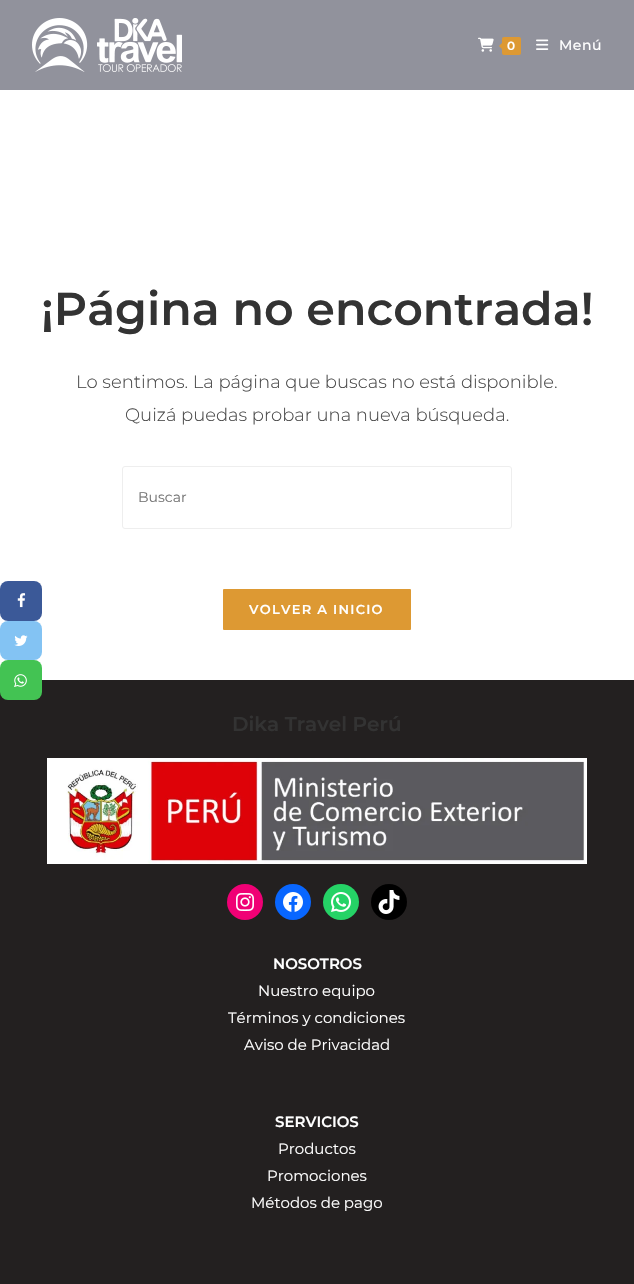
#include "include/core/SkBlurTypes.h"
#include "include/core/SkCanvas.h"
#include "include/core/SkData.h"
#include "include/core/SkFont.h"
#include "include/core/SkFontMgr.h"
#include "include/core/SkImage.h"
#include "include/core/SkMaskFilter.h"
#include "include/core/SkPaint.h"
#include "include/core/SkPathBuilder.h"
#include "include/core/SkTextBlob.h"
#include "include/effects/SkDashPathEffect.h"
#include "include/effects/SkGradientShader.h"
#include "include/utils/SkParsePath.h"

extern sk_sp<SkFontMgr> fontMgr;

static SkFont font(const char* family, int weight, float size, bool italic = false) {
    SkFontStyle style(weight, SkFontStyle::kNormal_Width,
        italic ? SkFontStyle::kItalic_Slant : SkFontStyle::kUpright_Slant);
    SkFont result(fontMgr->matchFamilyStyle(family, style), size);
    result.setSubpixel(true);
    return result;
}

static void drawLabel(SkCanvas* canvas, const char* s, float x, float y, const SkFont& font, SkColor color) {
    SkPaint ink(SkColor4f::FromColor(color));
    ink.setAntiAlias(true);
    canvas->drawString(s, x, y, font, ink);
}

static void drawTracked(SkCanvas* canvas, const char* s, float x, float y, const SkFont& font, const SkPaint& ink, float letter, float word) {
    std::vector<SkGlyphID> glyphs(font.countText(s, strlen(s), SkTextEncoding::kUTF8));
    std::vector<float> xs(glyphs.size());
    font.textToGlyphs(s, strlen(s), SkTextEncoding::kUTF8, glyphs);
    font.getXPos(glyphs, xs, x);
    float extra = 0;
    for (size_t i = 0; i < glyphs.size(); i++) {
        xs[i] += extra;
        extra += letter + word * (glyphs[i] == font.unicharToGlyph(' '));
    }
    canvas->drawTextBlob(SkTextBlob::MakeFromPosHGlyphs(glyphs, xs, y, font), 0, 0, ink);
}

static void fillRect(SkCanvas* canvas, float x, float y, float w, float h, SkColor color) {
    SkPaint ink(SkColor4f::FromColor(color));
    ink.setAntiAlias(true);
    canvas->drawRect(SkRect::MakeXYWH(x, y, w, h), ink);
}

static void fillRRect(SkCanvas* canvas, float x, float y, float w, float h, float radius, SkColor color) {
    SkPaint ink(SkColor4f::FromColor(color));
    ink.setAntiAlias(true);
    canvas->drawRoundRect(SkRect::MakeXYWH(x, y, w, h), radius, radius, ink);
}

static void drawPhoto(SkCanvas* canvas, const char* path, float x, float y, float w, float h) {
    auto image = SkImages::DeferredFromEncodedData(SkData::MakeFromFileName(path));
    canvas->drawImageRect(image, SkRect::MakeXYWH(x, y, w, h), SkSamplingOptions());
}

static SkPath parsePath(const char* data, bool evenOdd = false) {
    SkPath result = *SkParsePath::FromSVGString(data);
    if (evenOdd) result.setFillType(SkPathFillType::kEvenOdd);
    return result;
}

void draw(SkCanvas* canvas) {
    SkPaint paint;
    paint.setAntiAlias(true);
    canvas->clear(0xFFFFFFFF);
    fillRRect(canvas, 0, 581, 42, 40, 8, 0xFF3B5998);
    drawPhoto(canvas, "assets/img1.png", 17, 593, 9, 15);
    fillRRect(canvas, 0, 621, 42, 39, 8, 0xFF83C3F3);
    drawPhoto(canvas, "assets/img2.png", 14, 635, 14, 11);
    fillRect(canvas, 0, 680, 634, 604, 0xFF232020);
    fillRRect(canvas, 0, 660, 42, 40, 8, 0xFF43C353);
    drawPhoto(canvas, "assets/img3.png", 14, 674, 13, 13);
    fillRect(canvas, 0, 0, 634, 90, 0xFF91929C);
    drawPhoto(canvas, "assets/img4.png", 32, 18, 150, 54);
    drawPhoto(canvas, "assets/img5.png", 478, 37, 16, 15);
    fillRRect(canvas, 502, 37, 19, 18, 2, 0xFFDD9933);
    paint.setColor(0xFFDD9933);
    canvas->drawPath(parsePath("M504 41V51L499 46Z"), paint);
    SkFont font1 = font("Montserrat", 600, 12);
    paint.setColor(0xFFFFFFFF);
    drawTracked(canvas, "0", 507, 50, font1, paint, 0.5f, 0);
    drawPhoto(canvas, "assets/img6.png", 536, 39, 13, 11);
    SkFont font2 = font("Montserrat", 500, 14);
    drawTracked(canvas, "Menú", 559, 50, font2, paint, 0.5f, 0);
    SkFont font3 = font("Montserrat", 600, 46);
    drawLabel(canvas, "¡Página no encontrada!", 41, 325, font3, 0xFF333333);
    SkFont font4 = font("Montserrat", 300, 18);
    drawLabel(canvas, "Lo sentimos. La página que buscas no está disponible.", 76, 388, font4, 0xFF4A4A4A);
    drawLabel(canvas, "Quizá puedas probar una nueva búsqueda.", 125, 421, font4, 0xFF4A4A4A);
    paint.setStroke(true);
    paint.setStrokeWidth(1);
    paint.setColor(0xFFEEEEEE);
    canvas->drawRoundRect(SkRect::MakeXYWH(122.5f, 466.5f, 389, 62), 2.5f, 2.5f, paint);
    SkFont font5 = font("Montserrat", 400, 14);
    drawLabel(canvas, "Buscar", 138, 502, font5, 0xFF757575);
    fillRRect(canvas, 223, 589, 188, 41, 1, 0xFFDD9933);
    SkFont font6 = font("Montserrat", 600, 13);
    paint.setStroke(false);
    paint.setColor(0xFFFFFFFF);
    drawTracked(canvas, "VOLVER A INICIO", 249, 614, font6, paint, 1.25f, 0);
    SkFont font7 = font("Montserrat", 600, 20);
    drawLabel(canvas, "Dika Travel Perú", 232, 731, font7, 0xFF333333);
    drawPhoto(canvas, "assets/img7.png", 47, 758, 540, 106);
    paint.setColor(0xFFF00075);
    canvas->drawCircle(245, 902, 18, paint);
    drawPhoto(canvas, "assets/img8.png", 236, 893, 18, 18);
    paint.setColor(0xFF0866FF);
    canvas->drawCircle(293, 902, 18, paint);
    drawPhoto(canvas, "assets/img9.png", 283, 892, 20, 20);
    paint.setColor(0xFF25D366);
    canvas->drawCircle(341, 902, 18, paint);
    drawPhoto(canvas, "assets/img10.png", 331, 892, 20, 20);
    paint.setColor(0xFF000000);
    canvas->drawCircle(389, 902, 18, paint);
    drawPhoto(canvas, "assets/img11.png", 378, 890, 22, 24);
    SkFont font8 = font("Montserrat", 600, 15);
    drawLabel(canvas, "NOSOTROS", 273, 969, font8, 0xFFFFFFFF);
    SkFont font9 = font("Montserrat", 400, 15);
    drawLabel(canvas, "Nuestro equipo", 258, 996, font9, 0xFFFFFFFF);
    drawLabel(canvas, "Términos y condiciones", 228, 1023, font9, 0xFFFFFFFF);
    drawLabel(canvas, "Aviso de Privacidad", 244, 1050, font9, 0xFFFFFFFF);
    drawLabel(canvas, "SERVICIOS", 275, 1127, font8, 0xFFFFFFFF);
    drawLabel(canvas, "Productos", 278, 1154, font9, 0xFFFFFFFF);
    drawLabel(canvas, "Promociones", 267, 1181, font9, 0xFFFFFFFF);
    drawLabel(canvas, "Métodos de pago", 251, 1208, font9, 0xFFFFFFFF);
}
